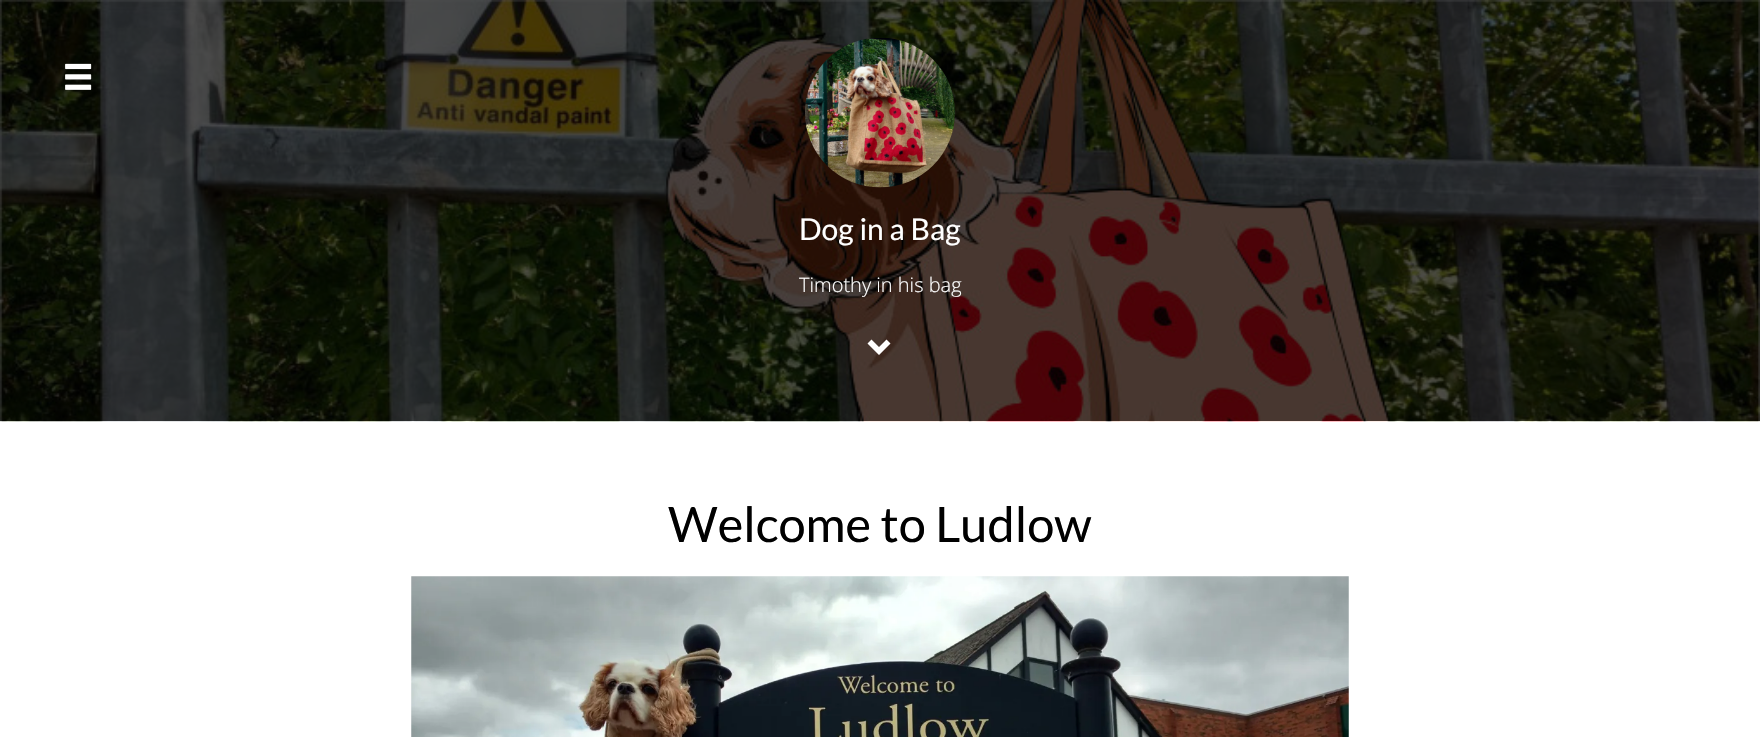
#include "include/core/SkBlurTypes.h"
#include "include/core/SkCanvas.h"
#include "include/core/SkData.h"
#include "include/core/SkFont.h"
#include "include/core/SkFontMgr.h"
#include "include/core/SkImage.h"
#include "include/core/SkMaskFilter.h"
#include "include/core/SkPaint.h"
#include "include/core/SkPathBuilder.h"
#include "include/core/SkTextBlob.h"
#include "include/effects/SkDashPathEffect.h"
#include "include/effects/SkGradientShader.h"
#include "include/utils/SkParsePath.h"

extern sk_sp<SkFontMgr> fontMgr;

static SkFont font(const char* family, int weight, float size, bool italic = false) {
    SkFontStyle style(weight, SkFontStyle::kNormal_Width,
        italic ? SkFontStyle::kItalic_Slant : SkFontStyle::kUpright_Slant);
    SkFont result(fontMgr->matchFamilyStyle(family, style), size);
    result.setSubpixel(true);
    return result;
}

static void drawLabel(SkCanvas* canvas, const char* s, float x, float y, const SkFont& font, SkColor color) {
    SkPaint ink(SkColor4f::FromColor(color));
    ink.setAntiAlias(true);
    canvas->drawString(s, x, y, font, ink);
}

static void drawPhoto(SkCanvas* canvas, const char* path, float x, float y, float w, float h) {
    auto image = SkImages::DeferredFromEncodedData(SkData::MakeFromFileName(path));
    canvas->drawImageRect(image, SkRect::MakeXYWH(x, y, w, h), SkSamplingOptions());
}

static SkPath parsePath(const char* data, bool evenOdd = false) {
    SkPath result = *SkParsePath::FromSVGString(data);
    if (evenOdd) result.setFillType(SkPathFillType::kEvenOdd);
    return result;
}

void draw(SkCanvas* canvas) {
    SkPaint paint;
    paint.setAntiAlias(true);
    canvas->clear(0xFFFFFFFF);
    drawPhoto(canvas, "assets/img2.png", 0, 0, 1760, 422);
    drawPhoto(canvas, "assets/img1.png", 65, 63, 27, 27);
    drawPhoto(canvas, "assets/img3.png", 805, 38, 150, 150);
    SkFont font1 = font("Lato", 400, 30);
    drawLabel(canvas, "Dog in a Bag", 799, 240, font1, 0xFFFFFFFF);
    SkFont font2 = font("Open Sans", 300, 20);
    drawLabel(canvas, "Timothy in his bag", 799, 292, font2, 0xFFFFFFFF);
    paint.setColor(0xFFFFFFFF);
    canvas->drawPath(parsePath("M890.5 343.5L879 355L867.5 343.5L871.5 339.5L879 347L886.5 339.5Z"), paint);
    SkFont font3 = font("Lato", 400, 48.75f);
    drawLabel(canvas, "Welcome to Ludlow", 668, 542, font3, 0xFF000000);
    drawPhoto(canvas, "assets/img4.png", 411, 576, 938, 161);
}
